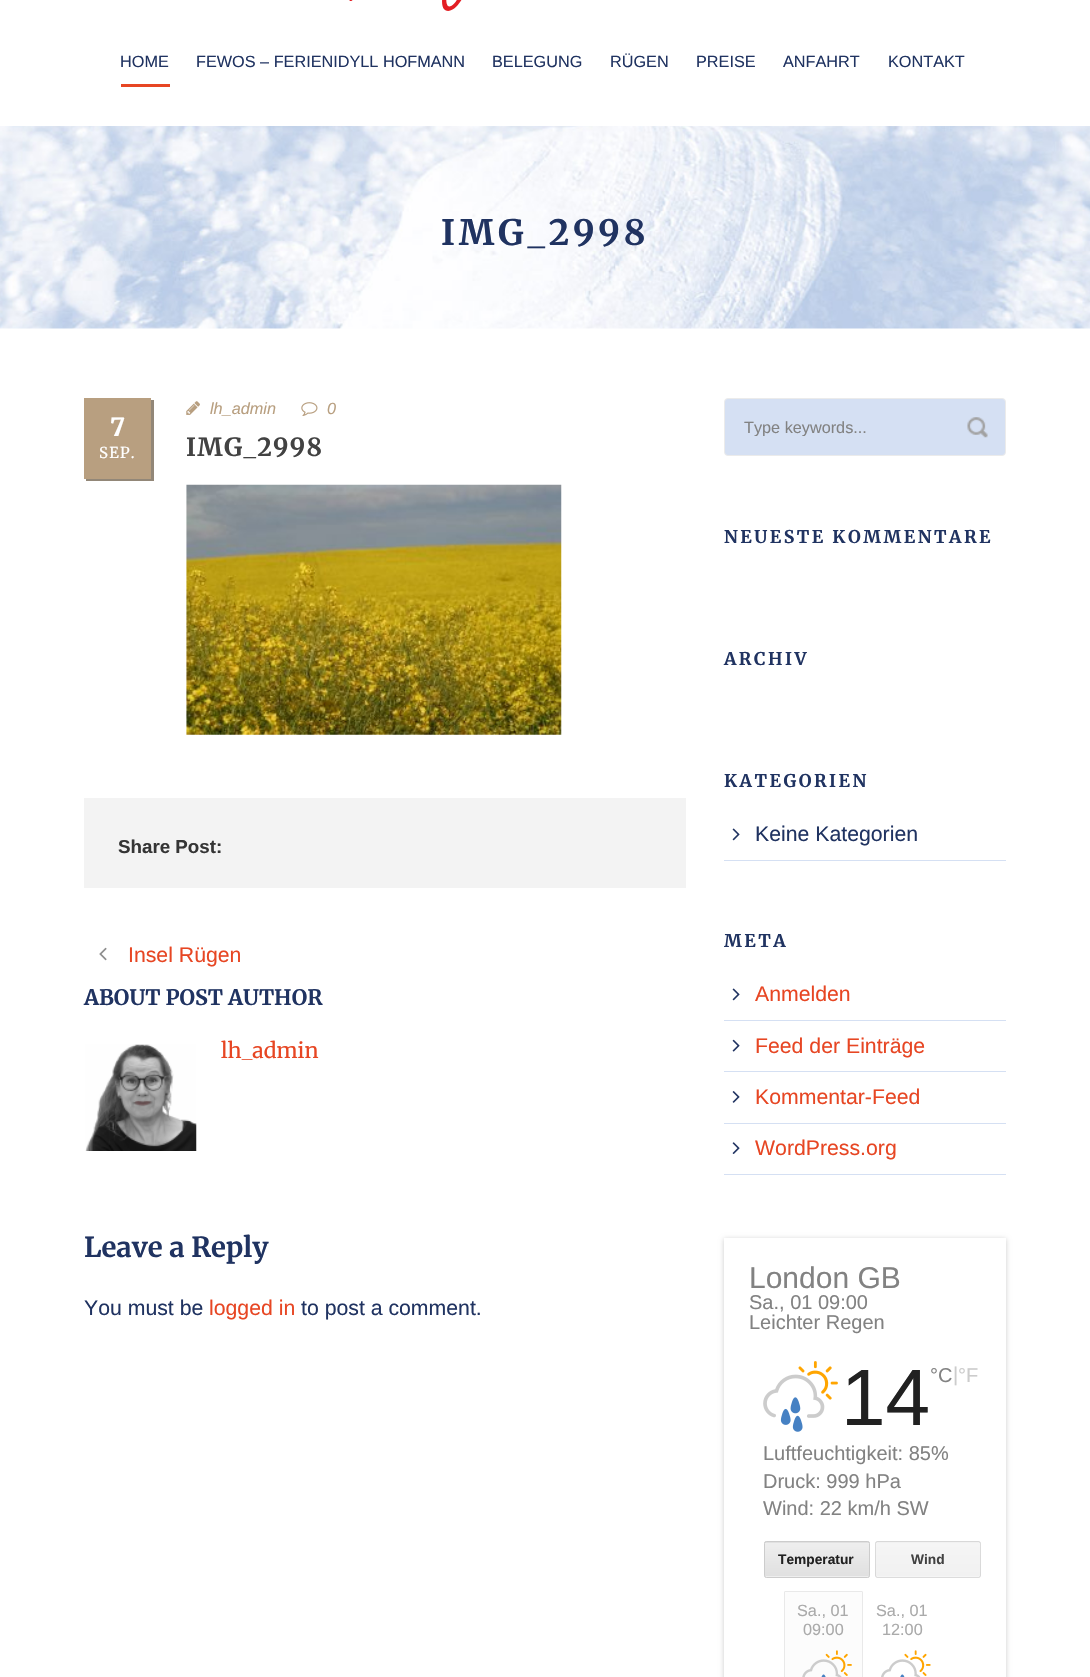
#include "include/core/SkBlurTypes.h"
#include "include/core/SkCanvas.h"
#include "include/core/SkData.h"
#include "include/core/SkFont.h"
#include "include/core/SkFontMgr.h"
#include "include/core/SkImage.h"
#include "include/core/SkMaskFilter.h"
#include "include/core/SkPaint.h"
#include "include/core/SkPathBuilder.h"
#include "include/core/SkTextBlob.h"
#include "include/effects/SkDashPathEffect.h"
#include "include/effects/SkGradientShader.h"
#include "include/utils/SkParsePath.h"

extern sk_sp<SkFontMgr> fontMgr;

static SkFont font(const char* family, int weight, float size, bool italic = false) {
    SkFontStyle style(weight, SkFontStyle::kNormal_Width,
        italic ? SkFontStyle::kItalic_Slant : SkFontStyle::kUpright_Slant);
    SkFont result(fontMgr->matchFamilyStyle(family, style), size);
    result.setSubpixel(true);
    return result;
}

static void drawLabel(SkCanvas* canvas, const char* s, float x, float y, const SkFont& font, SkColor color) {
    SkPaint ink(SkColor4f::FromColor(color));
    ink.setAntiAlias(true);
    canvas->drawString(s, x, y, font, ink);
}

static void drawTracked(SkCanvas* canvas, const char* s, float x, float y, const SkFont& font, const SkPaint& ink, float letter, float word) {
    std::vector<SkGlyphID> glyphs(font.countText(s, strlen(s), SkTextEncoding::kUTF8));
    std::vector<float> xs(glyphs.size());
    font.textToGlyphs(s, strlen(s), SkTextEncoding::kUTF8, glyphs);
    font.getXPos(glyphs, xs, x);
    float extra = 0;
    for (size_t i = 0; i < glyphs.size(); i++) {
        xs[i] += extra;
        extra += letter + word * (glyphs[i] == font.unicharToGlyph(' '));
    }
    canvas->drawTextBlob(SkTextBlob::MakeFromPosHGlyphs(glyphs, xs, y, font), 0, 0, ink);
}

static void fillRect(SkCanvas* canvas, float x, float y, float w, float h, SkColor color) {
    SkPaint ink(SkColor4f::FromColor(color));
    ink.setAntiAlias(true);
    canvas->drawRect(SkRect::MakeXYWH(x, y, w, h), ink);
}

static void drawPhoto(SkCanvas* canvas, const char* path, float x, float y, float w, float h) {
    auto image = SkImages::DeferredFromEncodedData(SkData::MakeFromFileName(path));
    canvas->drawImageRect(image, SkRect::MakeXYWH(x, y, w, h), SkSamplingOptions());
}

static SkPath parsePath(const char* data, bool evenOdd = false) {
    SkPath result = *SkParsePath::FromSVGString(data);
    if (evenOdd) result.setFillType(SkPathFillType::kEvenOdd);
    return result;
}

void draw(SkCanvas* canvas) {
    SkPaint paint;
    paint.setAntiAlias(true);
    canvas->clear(0xFFFFFFFF);
    drawPhoto(canvas, "assets/img1.png", 349, 0, 113, 11);
    SkFont font1 = font("Liberation Sans", 400, 16.25f);
    drawLabel(canvas, "HOME", 120, 67, font1, 0xFF203361);
    drawLabel(canvas, "FEWOS – FERIENIDYLL HOFMANN", 196, 67, font1, 0xFF203361);
    drawLabel(canvas, "BELEGUNG", 492, 67, font1, 0xFF203361);
    drawLabel(canvas, "RÜGEN", 610, 67, font1, 0xFF203361);
    drawLabel(canvas, "PREISE", 696, 67, font1, 0xFF203361);
    drawLabel(canvas, "ANFAHRT", 783, 67, font1, 0xFF203361);
    drawLabel(canvas, "KONTAKT", 888, 67, font1, 0xFF203361);
    fillRect(canvas, 121, 84, 49, 3, 0xFFE74623);
    drawPhoto(canvas, "assets/img2.png", 0, 126, 1090, 203);
    SkFont font2 = font("Merriweather", 700, 35);
    paint.setColor(0xFF203361);
    drawTracked(canvas, "IMG_2998", 441, 245, font2, paint, 3.75f, 0);
    paint.setColor(0xFF928778);
    canvas->drawPath(parsePath("M86 479V481H154V400H151V479Z"), paint);
    fillRect(canvas, 84, 398, 67, 81, 0xFFB89F80);
    SkFont font3 = font("Merriweather", 700, 25);
    drawLabel(canvas, "7", 110, 436, font3, 0xFFFFFFFF);
    SkFont font4 = font("Merriweather", 400, 15);
    paint.setColor(0xFFFFFFFF);
    drawTracked(canvas, "SEP.", 99, 458, font4, paint, 1.25f, 0);
    drawPhoto(canvas, "assets/img3.png", 186, 401, 14, 14);
    SkFont font5 = font("Liberation Sans", 400, 16.25f, true);
    drawLabel(canvas, "lh_admin", 210, 414, font5, 0xFFB89F80);
    drawPhoto(canvas, "assets/img4.png", 301, 402, 17, 14);
    drawLabel(canvas, "0", 327, 414, font5, 0xFFB89F80);
    paint.setColor(0xFF424242);
    drawTracked(canvas, "IMG_2998", 186, 456, font3, paint, 1.25f, 0);
    drawPhoto(canvas, "assets/img5.png", 186, 484, 376, 251);
    fillRect(canvas, 84, 798, 602, 90, 0xFFF3F3F3);
    SkFont font6 = font("Liberation Sans", 700, 18.75f);
    drawLabel(canvas, "Share Post:", 118, 853, font6, 0xFF353535);
    drawPhoto(canvas, "assets/img6.png", 99, 947, 8, 14);
    SkFont font7 = font("Liberation Sans", 400, 21.25f);
    drawLabel(canvas, "Insel Rügen", 128, 962, font7, 0xFFE74623);
    SkFont font8 = font("Merriweather", 700, 21.25f);
    drawLabel(canvas, "ABOUT POST AUTHOR", 84, 1005, font8, 0xFF203361);
    drawPhoto(canvas, "assets/img7.png", 85, 1044, 112, 107);
    SkFont font9 = font("Merriweather", 400, 21.25f);
    drawLabel(canvas, "lh_admin", 221, 1058, font9, 0xFFE74623);
    SkFont font10 = font("Merriweather", 700, 27.5f);
    drawLabel(canvas, "Leave a Reply", 84, 1257, font10, 0xFF203361);
    drawLabel(canvas, "You must be", 84, 1315, font7, 0xFF203361);
    drawLabel(canvas, "logged in", 209, 1315, font7, 0xFFE74623);
    drawLabel(canvas, "to post a comment.", 301, 1315, font7, 0xFF203361);
    paint.setColor(0xFFD5E0F3);
    canvas->drawRoundRect(SkRect::MakeXYWH(724.5f, 398.5f, 281, 57), 3.5f, 3.5f, paint);
    paint.setStroke(true);
    paint.setStrokeWidth(1);
    paint.setColor(0xFFEBEBEB);
    canvas->drawRoundRect(SkRect::MakeXYWH(724.5f, 398.5f, 281, 57), 3.5f, 3.5f, paint);
    canvas->save();
    canvas->clipRect(SkRect::MakeXYWH(744, 418, 242, 18));
    drawLabel(canvas, "Type keywords...", 744, 433, font1, 0xFF828282);
    canvas->restore();
    drawPhoto(canvas, "assets/img8.png", 967, 417, 21, 21);
    SkFont font11 = font("Merriweather", 700, 17.5f);
    paint.setStroke(false);
    paint.setColor(0xFF203361);
    drawTracked(canvas, "NEUESTE KOMMENTARE", 724, 543, font11, paint, 2.5f, 0);
    drawTracked(canvas, "ARCHIV", 724, 665, font11, paint, 2.5f, 0);
    drawTracked(canvas, "KATEGORIEN", 724, 787, font11, paint, 2.5f, 0);
    fillRect(canvas, 724, 860, 282, 1, 0xFFD5E0F3);
    drawPhoto(canvas, "assets/img9.png", 732, 828, 8, 13);
    drawLabel(canvas, "Keine Kategorien", 755, 841, font7, 0xFF203361);
    drawTracked(canvas, "META", 724, 947, font11, paint, 2.5f, 0);
    fillRect(canvas, 724, 1020, 282, 1, 0xFFD5E0F3);
    drawPhoto(canvas, "assets/img9.png", 732, 988, 8, 13);
    drawLabel(canvas, "Anmelden", 755, 1001, font7, 0xFFE74623);
    fillRect(canvas, 724, 1071, 282, 1, 0xFFD5E0F3);
    drawPhoto(canvas, "assets/img10.png", 732, 1039, 8, 13);
    drawLabel(canvas, "Feed der Einträge", 755, 1053, font7, 0xFFE74623);
    fillRect(canvas, 724, 1123, 282, 1, 0xFFD5E0F3);
    drawPhoto(canvas, "assets/img11.png", 732, 1091, 8, 12);
    drawLabel(canvas, "Kommentar-Feed", 755, 1104, font7, 0xFFE74623);
    fillRect(canvas, 724, 1174, 282, 1, 0xFFD5E0F3);
    drawPhoto(canvas, "assets/img12.png", 732, 1142, 8, 12);
    drawLabel(canvas, "WordPress.org", 755, 1155, font7, 0xFFE74623);
    canvas->save();
    canvas->clipPath(parsePath("M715 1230H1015V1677H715ZM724 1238H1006V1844H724Z", true), true);
    paint.setColor(0x33000000);
    paint.setMaskFilter(SkMaskFilter::MakeBlur(kNormal_SkBlurStyle, 2.5f));
    canvas->drawRect(SkRect::MakeXYWH(724, 1239, 282, 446), paint);
    paint.setMaskFilter(nullptr);
    canvas->restore();
    SkFont font12 = font("Liberation Sans", 400, 30);
    drawLabel(canvas, "London GB", 749, 1288, font12, 0xFF828282);
    SkFont font13 = font("Liberation Sans", 400, 20);
    drawLabel(canvas, "Sa., 01 09:00", 749, 1309, font13, 0xFF828282);
    drawLabel(canvas, "Leichter Regen", 749, 1329, font13, 0xFF828282);
    drawPhoto(canvas, "assets/img15.png", 763, 1374, 62, 44);
    drawPhoto(canvas, "assets/img14.png", 780, 1397, 23, 35);
    drawPhoto(canvas, "assets/img13.png", 798, 1361, 40, 39);
    SkFont font14 = font("Liberation Sans", 400, 80);
    drawLabel(canvas, "14", 841, 1425, font14, 0xFF212121);
    drawLabel(canvas, "°C", 930, 1382, font13, 0xFF828282);
    drawLabel(canvas, "|", 953, 1381, font13, 0xFFCCCCCC);
    drawLabel(canvas, "°F", 958, 1382, font13, 0xFFCCCCCC);
    drawLabel(canvas, "Luftfeuchtigkeit: 85%", 763, 1460, font13, 0xFF828282);
    drawLabel(canvas, "Druck: 999 hPa", 763, 1488, font13, 0xFF828282);
    drawLabel(canvas, "Wind: 22 km/h SW", 763, 1515, font13, 0xFF828282);
    canvas->save();
    canvas->clipPath(parsePath("M766.5 1541H867.5C869 1541 870 1542 870 1543.5V1575.5C870 1577 869 1578 867.5 1578H766.5C765 1578 764 1577 764 1575.5V1543.5C764 1542 765 1541 766.5 1541Z"), true);
    {
        const SkColor colors[] = {0xFFEEEEEE, 0xFFE0E0E0};
        const float stops[] = {0, 1};
        const SkPoint ends[] = {{817, 1509}, {817, 1543}};
        paint.setShader(SkGradientShader::MakeLinear(ends, colors, stops, 2, SkTileMode::kClamp));
        paint.setAlpha(255);
    }
    canvas->drawRect(SkRect::MakeXYWH(764, 1541, 106, 2), paint);
    canvas->restore();
    {
        const SkColor colors[] = {0xFFEEEEEE, 0xFFE0E0E0};
        const float stops[] = {0, 1};
        const SkPoint ends[] = {{817, 1543}, {817, 1576}};
        paint.setShader(SkGradientShader::MakeLinear(ends, colors, stops, 2, SkTileMode::kClamp));
        paint.setAlpha(255);
    }
    canvas->drawRect(SkRect::MakeXYWH(764, 1543, 106, 33), paint);
    canvas->save();
    canvas->clipPath(parsePath("M766.5 1541H867.5C869 1541 870 1542 870 1543.5V1575.5C870 1577 869 1578 867.5 1578H766.5C765 1578 764 1577 764 1575.5V1543.5C764 1542 765 1541 766.5 1541Z"), true);
    {
        const SkColor colors[] = {0xFFEEEEEE, 0xFFE0E0E0};
        const float stops[] = {0, 1};
        const SkPoint ends[] = {{817, 1576}, {817, 1610}};
        paint.setShader(SkGradientShader::MakeLinear(ends, colors, stops, 2, SkTileMode::kClamp));
        paint.setAlpha(255);
    }
    canvas->drawRect(SkRect::MakeXYWH(764, 1576, 106, 2), paint);
    canvas->restore();
    paint.setStroke(true);
    paint.setShader(nullptr);
    paint.setColor(0xFFCCCCCC);
    canvas->drawRoundRect(SkRect::MakeXYWH(764.5f, 1541.5f, 105, 36), 2, 2, paint);
    SkFont font15 = font("Liberation Sans", 700, 13.75f);
    drawLabel(canvas, "Temperatur", 778, 1564, font15, 0xFF212121);
    canvas->save();
    canvas->clipPath(parsePath("M877.5 1541H978.5C980 1541 981 1542 981 1543.5V1575.5C981 1577 980 1578 978.5 1578H877.5C876 1578 875 1577 875 1575.5V1543.5C875 1542 876 1541 877.5 1541Z"), true);
    paint.setStroke(false);
    {
        const SkColor colors[] = {0xFFF5F5F5, 0xFFF1F1F1};
        const float stops[] = {0, 1};
        const SkPoint ends[] = {{928, 1509}, {928, 1543}};
        paint.setShader(SkGradientShader::MakeLinear(ends, colors, stops, 2, SkTileMode::kClamp));
        paint.setAlpha(255);
    }
    canvas->drawRect(SkRect::MakeXYWH(875, 1541, 106, 2), paint);
    canvas->restore();
    {
        const SkColor colors[] = {0xFFF5F5F5, 0xFFF1F1F1};
        const float stops[] = {0, 1};
        const SkPoint ends[] = {{928, 1543}, {928, 1576}};
        paint.setShader(SkGradientShader::MakeLinear(ends, colors, stops, 2, SkTileMode::kClamp));
        paint.setAlpha(255);
    }
    canvas->drawRect(SkRect::MakeXYWH(875, 1543, 106, 33), paint);
    canvas->save();
    canvas->clipPath(parsePath("M877.5 1541H978.5C980 1541 981 1542 981 1543.5V1575.5C981 1577 980 1578 978.5 1578H877.5C876 1578 875 1577 875 1575.5V1543.5C875 1542 876 1541 877.5 1541Z"), true);
    {
        const SkColor colors[] = {0xFFF5F5F5, 0xFFF1F1F1};
        const float stops[] = {0, 1};
        const SkPoint ends[] = {{928, 1576}, {928, 1610}};
        paint.setShader(SkGradientShader::MakeLinear(ends, colors, stops, 2, SkTileMode::kClamp));
        paint.setAlpha(255);
    }
    canvas->drawRect(SkRect::MakeXYWH(875, 1576, 106, 2), paint);
    canvas->restore();
    paint.setStroke(true);
    paint.setShader(nullptr);
    paint.setColor(0x1A000000);
    canvas->drawRoundRect(SkRect::MakeXYWH(875.5f, 1541.5f, 105, 36), 2, 2, paint);
    drawLabel(canvas, "Wind", 911, 1564, font15, 0xFF424242);
    paint.setStroke(false);
    paint.setColor(0xFFFCFCFC);
    canvas->drawRoundRect(SkRect::MakeXYWH(784.5f, 1591.5f, 78, 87), 0.5f, 0.5f, paint);
    paint.setStroke(true);
    paint.setColor(0xFFE9E9E9);
    canvas->drawRoundRect(SkRect::MakeXYWH(784.5f, 1591.5f, 78, 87), 0.5f, 0.5f, paint);
    drawLabel(canvas, "Sa., 01", 797, 1616, font1, 0xFFAAAAAA);
    drawLabel(canvas, "09:00", 803, 1635, font1, 0xFFAAAAAA);
    drawPhoto(canvas, "assets/img18.png", 802, 1659, 40, 18);
    drawPhoto(canvas, "assets/img16.png", 821, 1674, 5, 3);
    drawPhoto(canvas, "assets/img17.png", 825, 1650, 27, 26);
    drawLabel(canvas, "Sa., 01", 876, 1616, font1, 0xFFAAAAAA);
    drawLabel(canvas, "12:00", 882, 1635, font1, 0xFFAAAAAA);
    drawPhoto(canvas, "assets/img21.png", 881, 1659, 40, 18);
    drawPhoto(canvas, "assets/img19.png", 900, 1674, 5, 3);
    drawPhoto(canvas, "assets/img20.png", 904, 1650, 27, 26);
}
